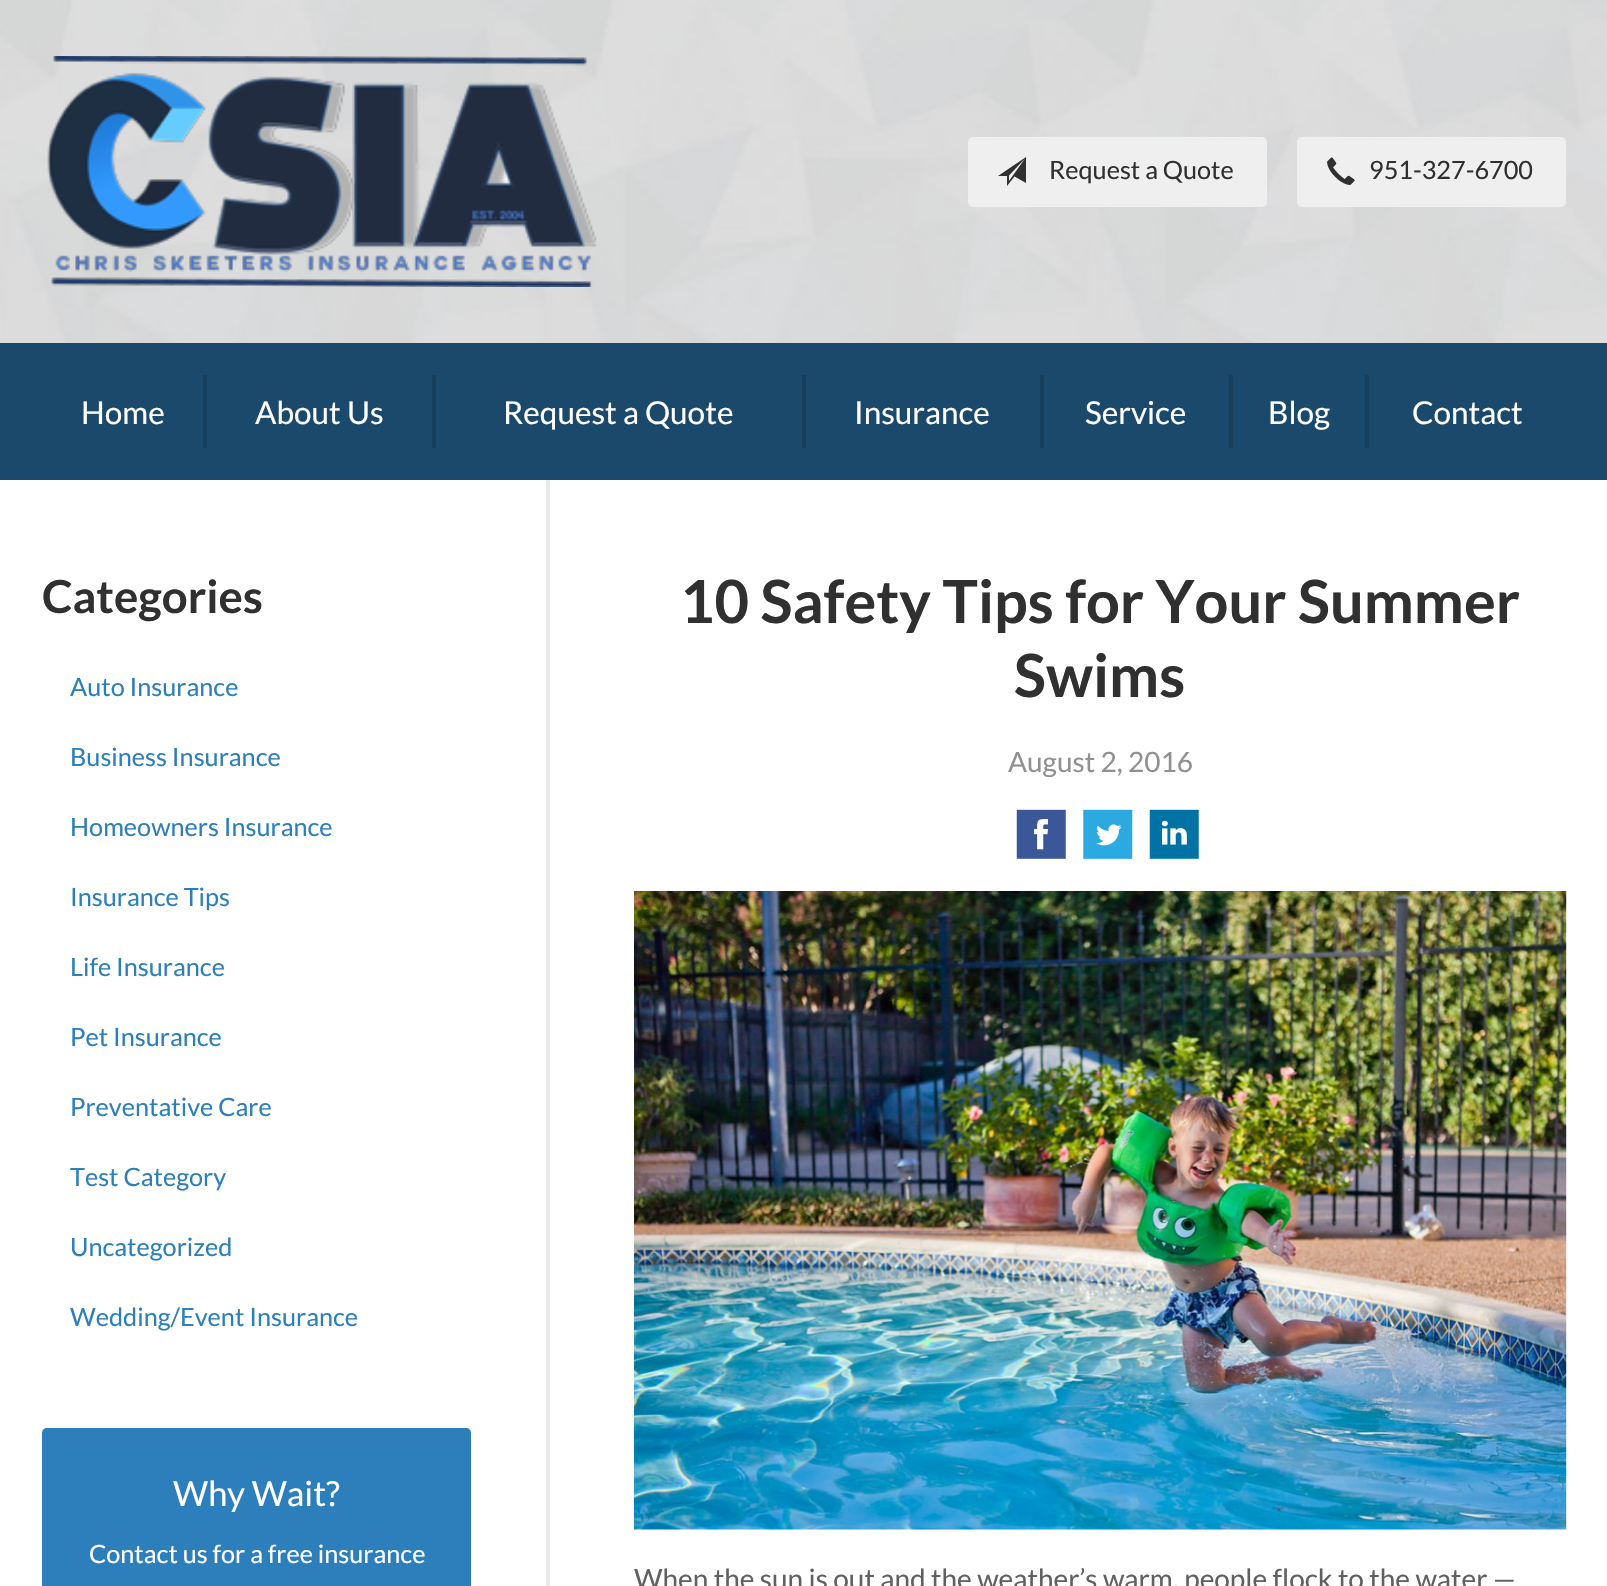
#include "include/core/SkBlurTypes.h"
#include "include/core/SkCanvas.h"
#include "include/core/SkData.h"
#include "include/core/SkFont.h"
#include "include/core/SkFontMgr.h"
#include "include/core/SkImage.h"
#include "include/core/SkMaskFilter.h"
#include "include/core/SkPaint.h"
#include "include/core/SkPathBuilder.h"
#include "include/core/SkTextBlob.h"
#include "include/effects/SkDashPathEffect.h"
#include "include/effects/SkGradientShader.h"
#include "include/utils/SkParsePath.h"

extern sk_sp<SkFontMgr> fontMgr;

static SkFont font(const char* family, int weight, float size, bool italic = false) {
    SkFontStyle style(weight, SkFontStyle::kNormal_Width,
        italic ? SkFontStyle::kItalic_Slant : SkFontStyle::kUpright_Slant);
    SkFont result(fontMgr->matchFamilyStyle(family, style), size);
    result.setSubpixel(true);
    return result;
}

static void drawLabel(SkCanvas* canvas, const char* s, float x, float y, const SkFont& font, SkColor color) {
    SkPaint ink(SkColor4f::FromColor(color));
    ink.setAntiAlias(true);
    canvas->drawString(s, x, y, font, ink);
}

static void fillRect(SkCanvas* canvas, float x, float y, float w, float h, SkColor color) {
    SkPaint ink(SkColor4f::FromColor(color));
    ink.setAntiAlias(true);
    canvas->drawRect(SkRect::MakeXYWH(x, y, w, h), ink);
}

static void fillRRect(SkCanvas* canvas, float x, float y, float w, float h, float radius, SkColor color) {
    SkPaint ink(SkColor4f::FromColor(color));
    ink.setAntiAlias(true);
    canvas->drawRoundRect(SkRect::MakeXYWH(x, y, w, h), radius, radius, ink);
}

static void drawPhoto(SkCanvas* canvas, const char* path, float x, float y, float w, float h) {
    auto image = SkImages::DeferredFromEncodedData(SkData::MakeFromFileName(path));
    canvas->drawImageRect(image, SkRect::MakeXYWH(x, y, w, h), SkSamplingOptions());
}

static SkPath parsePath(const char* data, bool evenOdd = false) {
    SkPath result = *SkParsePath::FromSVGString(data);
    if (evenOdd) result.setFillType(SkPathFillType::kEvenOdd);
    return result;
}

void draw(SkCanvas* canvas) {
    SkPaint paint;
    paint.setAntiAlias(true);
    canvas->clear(0xFFFFFFFF);
    drawPhoto(canvas, "assets/img1.png", 0, 0, 1607, 343);
    drawPhoto(canvas, "assets/img2.png", 47, 56, 550, 231);
    fillRRect(canvas, 968, 137, 299, 70, 5, 0xFFEFEFEF);
    paint.setColor(0xFF303030);
    canvas->drawPath(parsePath("M998 176H1007V186L1014.5 176.5L1026 183V157ZM1009 181V175.5L1025 158.5Z"), paint);
    SkFont font1 = font("Lato", 400, 25.25f);
    drawLabel(canvas, "Request a Quote", 1049, 179, font1, 0xFF303030);
    fillRRect(canvas, 1297, 137, 269, 70, 5, 0xFFEFEFEF);
    drawPhoto(canvas, "assets/img3.png", 1327, 157, 28, 28);
    drawLabel(canvas, "951-327-6700", 1369, 179, font1, 0xFF303030);
    fillRect(canvas, 0, 343, 1607, 137, 0xFF1B496B);
    fillRect(canvas, 203, 375, 4, 73, 0xFF173E5B);
    SkFont font2 = font("Lato", 400, 31.5f);
    drawLabel(canvas, "Home", 81, 424, font2, 0xFFFFFFFF);
    fillRect(canvas, 432, 375, 4, 73, 0xFF173E5B);
    drawLabel(canvas, "About Us", 255, 424, font2, 0xFFFFFFFF);
    fillRect(canvas, 802, 375, 4, 73, 0xFF173E5B);
    drawLabel(canvas, "Request a Quote", 503, 424, font2, 0xFFFFFFFF);
    fillRect(canvas, 1040, 375, 4, 73, 0xFF173E5B);
    drawLabel(canvas, "Insurance", 854, 424, font2, 0xFFFFFFFF);
    fillRect(canvas, 1229, 375, 4, 73, 0xFF173E5B);
    drawLabel(canvas, "Service", 1085, 424, font2, 0xFFFFFFFF);
    fillRect(canvas, 1365, 375, 4, 73, 0xFF173E5B);
    drawLabel(canvas, "Blog", 1268, 424, font2, 0xFFFFFFFF);
    drawLabel(canvas, "Contact", 1412, 424, font2, 0xFFFFFFFF);
    fillRect(canvas, 546, 480, 4, 1106, 0xFFEBEAEA);
    SkFont font3 = font("Lato", 700, 45.5f);
    drawLabel(canvas, "Categories", 42, 613, font3, 0xFF303030);
    drawLabel(canvas, "Auto Insurance", 70, 696, font1, 0xFF2D7FBB);
    drawLabel(canvas, "Business Insurance", 70, 766, font1, 0xFF2D7FBB);
    drawLabel(canvas, "Homeowners Insurance", 70, 836, font1, 0xFF2D7FBB);
    drawLabel(canvas, "Insurance Tips", 70, 906, font1, 0xFF2D7FBB);
    drawLabel(canvas, "Life Insurance", 70, 976, font1, 0xFF2D7FBB);
    drawLabel(canvas, "Pet Insurance", 70, 1046, font1, 0xFF2D7FBB);
    drawLabel(canvas, "Preventative Care", 70, 1116, font1, 0xFF2D7FBB);
    drawLabel(canvas, "Test Category", 70, 1186, font1, 0xFF2D7FBB);
    drawLabel(canvas, "Uncategorized", 70, 1256, font1, 0xFF2D7FBB);
    drawLabel(canvas, "Wedding/Event Insurance", 70, 1326, font1, 0xFF2D7FBB);
    paint.setColor(0xFF2D7FBB);
    canvas->drawPath(parsePath("M47 1428H466C469 1428 471 1430 471 1433V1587H42V1433C42 1430 44 1428 47 1428Z"), paint);
    SkFont font4 = font("Lato", 400, 34.5f);
    drawLabel(canvas, "Why Wait?", 173, 1506, font4, 0xFFFFFFFF);
    drawLabel(canvas, "Contact us for a free insurance", 89, 1563, font1, 0xFFFFFFFF);
    SkFont font5 = font("Lato", 700, 59.5f);
    drawLabel(canvas, "10 Safety Tips for Your Summer", 680, 623, font5, 0xFF303030);
    drawLabel(canvas, "Swims", 1014, 697, font5, 0xFF303030);
    SkFont font6 = font("Lato", 400, 28);
    drawLabel(canvas, "August 2, 2016", 1008, 772, font6, 0xFF909090);
    drawPhoto(canvas, "assets/img4.png", 1016, 809, 50, 50);
    drawPhoto(canvas, "assets/img5.png", 1083, 809, 50, 50);
    drawPhoto(canvas, "assets/img6.png", 1149, 809, 50, 50);
    drawPhoto(canvas, "assets/img7.png", 634, 891, 933, 639);
    drawLabel(canvas, "When the sun is out and the weather’s warm, people flock to the water —", 634, 1589, font6, 0xFF606060);
}
